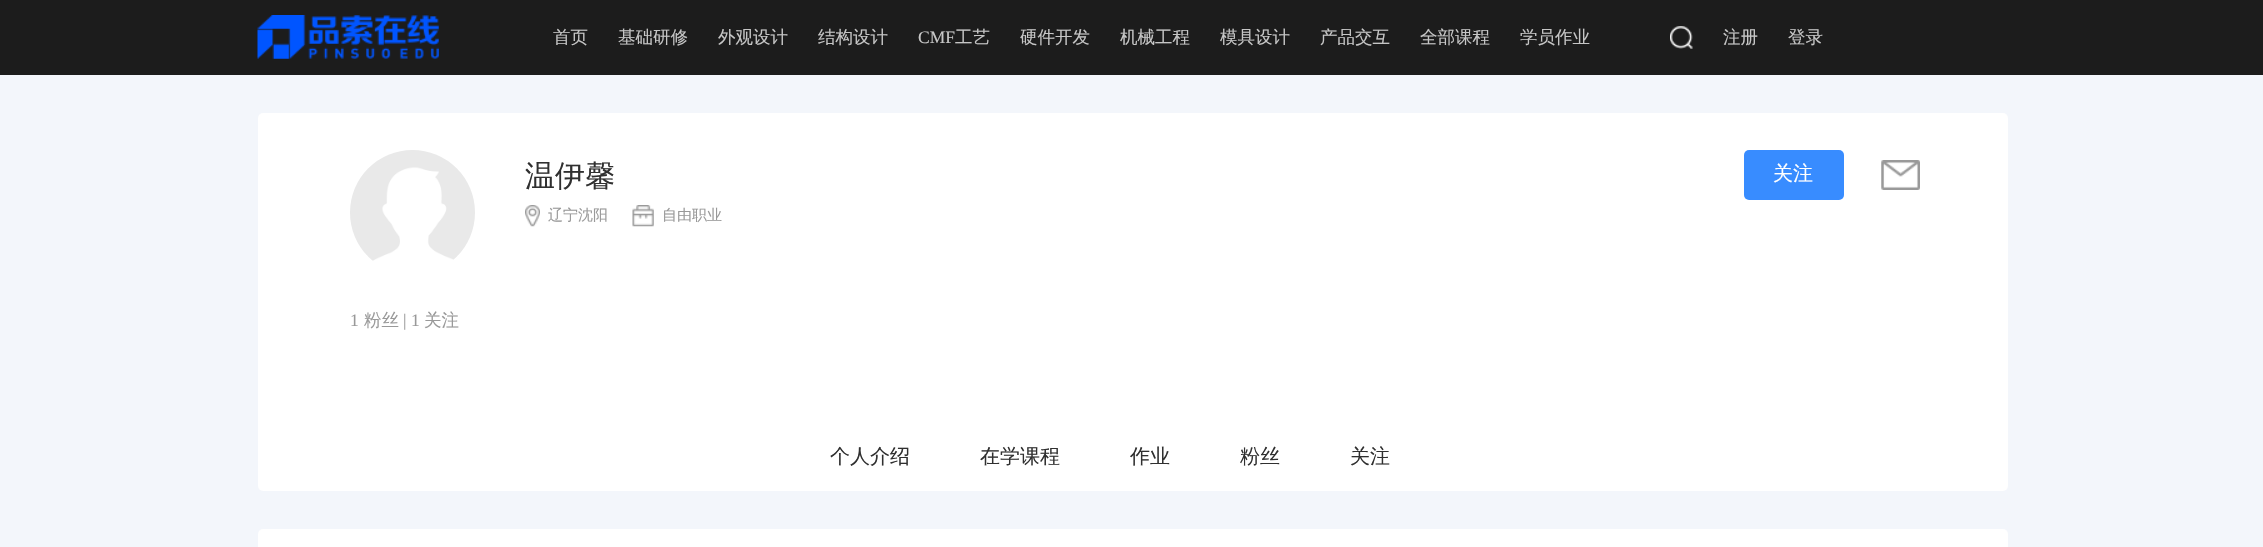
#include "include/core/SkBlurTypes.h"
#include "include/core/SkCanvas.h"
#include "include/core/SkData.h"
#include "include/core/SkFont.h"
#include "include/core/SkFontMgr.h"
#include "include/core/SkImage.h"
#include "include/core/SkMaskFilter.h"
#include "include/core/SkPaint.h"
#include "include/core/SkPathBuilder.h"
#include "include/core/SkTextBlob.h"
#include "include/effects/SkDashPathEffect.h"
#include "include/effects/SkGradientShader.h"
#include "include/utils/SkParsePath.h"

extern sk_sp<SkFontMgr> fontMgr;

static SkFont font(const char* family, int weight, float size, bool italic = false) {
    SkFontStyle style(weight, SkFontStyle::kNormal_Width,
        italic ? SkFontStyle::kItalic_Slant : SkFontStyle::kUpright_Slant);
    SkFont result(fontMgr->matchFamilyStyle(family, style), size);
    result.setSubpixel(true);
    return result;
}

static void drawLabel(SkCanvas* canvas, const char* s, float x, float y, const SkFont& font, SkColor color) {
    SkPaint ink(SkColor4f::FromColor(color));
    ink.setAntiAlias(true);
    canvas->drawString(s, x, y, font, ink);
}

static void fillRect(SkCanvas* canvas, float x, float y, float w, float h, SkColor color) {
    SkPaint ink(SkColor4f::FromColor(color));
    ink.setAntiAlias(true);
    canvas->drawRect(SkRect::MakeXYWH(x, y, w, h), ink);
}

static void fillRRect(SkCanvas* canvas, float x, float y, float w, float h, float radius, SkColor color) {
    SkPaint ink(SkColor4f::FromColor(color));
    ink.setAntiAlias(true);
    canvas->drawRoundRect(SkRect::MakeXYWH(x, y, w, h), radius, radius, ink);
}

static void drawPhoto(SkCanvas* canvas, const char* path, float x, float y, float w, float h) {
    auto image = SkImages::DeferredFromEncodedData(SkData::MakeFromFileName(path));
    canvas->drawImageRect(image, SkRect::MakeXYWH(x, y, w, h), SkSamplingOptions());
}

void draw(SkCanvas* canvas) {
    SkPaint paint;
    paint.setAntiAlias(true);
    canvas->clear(0xFFF3F6FB);
    fillRect(canvas, 0, 0, 2263, 75, 0xFF1C1C1C);
    drawPhoto(canvas, "assets/img1.png", 257, 15, 182, 44);
    SkFont font1 = font("WenQuanYi Zen Hei", 500, 17.5f);
    drawLabel(canvas, "首页", 553, 43, font1, 0xFFC6C6C6);
    drawLabel(canvas, "基础研修", 618, 43, font1, 0xFFC6C6C6);
    drawLabel(canvas, "外观设计", 718, 43, font1, 0xFFC6C6C6);
    drawLabel(canvas, "结构设计", 818, 43, font1, 0xFFC6C6C6);
    SkFont font2 = font("Liberation Serif", 400, 17.5f);
    drawLabel(canvas, "CMF", 918, 43, font2, 0xFFC6C6C6);
    drawLabel(canvas, "工艺", 955, 43, font1, 0xFFC6C6C6);
    drawLabel(canvas, "硬件开发", 1020, 43, font1, 0xFFC6C6C6);
    drawLabel(canvas, "机械工程", 1120, 43, font1, 0xFFC6C6C6);
    drawLabel(canvas, "模具设计", 1220, 43, font1, 0xFFC6C6C6);
    drawLabel(canvas, "产品交互", 1320, 43, font1, 0xFFC6C6C6);
    drawLabel(canvas, "全部课程", 1420, 43, font1, 0xFFC6C6C6);
    drawLabel(canvas, "学员作业", 1520, 43, font1, 0xFFC6C6C6);
    drawPhoto(canvas, "assets/img2.png", 1670, 26, 23, 23);
    drawLabel(canvas, "注册", 1723, 43, font1, 0xFFC6C6C6);
    drawLabel(canvas, "登录", 1788, 43, font1, 0xFFC6C6C6);
    fillRRect(canvas, 258, 113, 1750, 378, 5, 0xFFFFFFFF);
    drawPhoto(canvas, "assets/img3.png", 350, 150, 125, 111);
    SkFont font3 = font("WenQuanYi Zen Hei", 500, 30);
    drawLabel(canvas, "温伊馨", 525, 186, font3, 0xFF303030);
    drawPhoto(canvas, "assets/img4.png", 525, 205, 15, 22);
    SkFont font4 = font("WenQuanYi Zen Hei", 500, 15);
    drawLabel(canvas, "辽宁沈阳", 548, 220, font4, 0xFF999999);
    drawPhoto(canvas, "assets/img5.png", 632, 205, 22, 22);
    drawLabel(canvas, "自由职业", 662, 220, font4, 0xFF999999);
    fillRRect(canvas, 1744, 150, 100, 50, 5, 0xFF388CFF);
    SkFont font5 = font("WenQuanYi Zen Hei", 500, 20);
    drawLabel(canvas, "关注", 1773, 180, font5, 0xFFFFFFFF);
    drawPhoto(canvas, "assets/img6.png", 1881, 160, 39, 30);
    drawLabel(canvas, "1", 350, 326, font2, 0xFF999999);
    drawLabel(canvas, "粉丝", 364, 326, font1, 0xFF999999);
    drawLabel(canvas, "| 1", 403, 326, font2, 0xFF999999);
    drawLabel(canvas, "关注", 424, 326, font1, 0xFF999999);
    drawLabel(canvas, "个人介绍", 830, 463, font5, 0xFF303030);
    drawLabel(canvas, "在学课程", 980, 463, font5, 0xFF303030);
    drawLabel(canvas, "作业", 1130, 463, font5, 0xFF303030);
    drawLabel(canvas, "粉丝", 1240, 463, font5, 0xFF303030);
    drawLabel(canvas, "关注", 1350, 463, font5, 0xFF303030);
    fillRRect(canvas, 258, 529, 1750, 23, 5, 0xFFFFFFFF);
}
